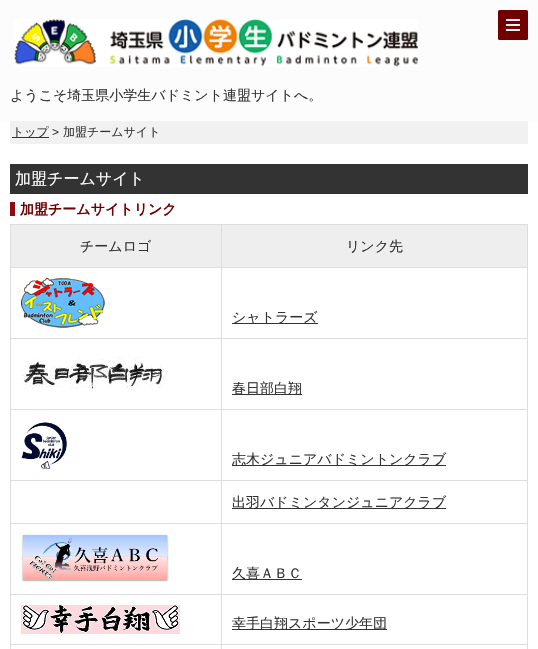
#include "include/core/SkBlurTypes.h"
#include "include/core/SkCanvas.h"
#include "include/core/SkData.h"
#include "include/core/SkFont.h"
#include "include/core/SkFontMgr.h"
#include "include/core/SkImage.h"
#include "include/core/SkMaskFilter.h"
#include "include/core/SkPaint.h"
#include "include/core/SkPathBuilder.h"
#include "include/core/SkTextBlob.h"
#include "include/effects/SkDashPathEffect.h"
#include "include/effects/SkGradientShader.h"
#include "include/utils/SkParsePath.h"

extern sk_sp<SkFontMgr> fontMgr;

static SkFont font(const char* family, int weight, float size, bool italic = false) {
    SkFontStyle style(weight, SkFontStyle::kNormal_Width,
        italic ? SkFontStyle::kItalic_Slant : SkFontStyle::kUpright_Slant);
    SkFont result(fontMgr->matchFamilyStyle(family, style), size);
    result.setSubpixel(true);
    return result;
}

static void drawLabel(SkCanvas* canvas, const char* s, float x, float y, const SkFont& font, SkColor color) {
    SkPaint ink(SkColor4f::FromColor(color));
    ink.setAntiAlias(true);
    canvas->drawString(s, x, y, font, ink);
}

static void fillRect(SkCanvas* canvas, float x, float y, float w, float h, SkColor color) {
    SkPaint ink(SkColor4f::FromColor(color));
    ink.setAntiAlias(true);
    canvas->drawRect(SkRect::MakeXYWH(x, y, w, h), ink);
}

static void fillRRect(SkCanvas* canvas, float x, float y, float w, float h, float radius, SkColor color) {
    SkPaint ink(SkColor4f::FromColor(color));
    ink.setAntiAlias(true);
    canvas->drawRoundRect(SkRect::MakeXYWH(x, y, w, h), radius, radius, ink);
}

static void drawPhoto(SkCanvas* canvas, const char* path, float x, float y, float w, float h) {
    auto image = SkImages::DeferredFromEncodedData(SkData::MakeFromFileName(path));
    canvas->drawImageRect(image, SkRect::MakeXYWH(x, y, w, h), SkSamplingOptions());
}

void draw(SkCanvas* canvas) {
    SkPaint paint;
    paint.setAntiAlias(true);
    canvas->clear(0xFFFFFFFF);
    fillRect(canvas, 0, 0, 538, 121, 0xFFFCFCFC);
    fillRRect(canvas, 498, 10, 30, 30, 1.5f, 0xFF710000);
    fillRect(canvas, 506, 24, 14, 2, 0xFFF1F1F1);
    fillRect(canvas, 506, 19, 14, 2, 0xFFF1F1F1);
    fillRect(canvas, 506, 29, 14, 2, 0xFFF1F1F1);
    drawPhoto(canvas, "assets/img1.png", 14, 19, 404, 48);
    SkFont font1 = font("WenQuanYi Zen Hei", 500, 14);
    drawLabel(canvas, "ようこそ埼玉県小学生バドミント連盟サイトへ。", 10, 100, font1, 0xFF333333);
    fillRect(canvas, 10, 121, 518, 23, 0xFFF1F1F1);
    fillRect(canvas, 12, 137, 37, 1, 0xFF333333);
    SkFont font2 = font("WenQuanYi Zen Hei", 500, 12);
    drawLabel(canvas, "トップ", 12, 136, font2, 0xFF333333);
    SkFont font3 = font("Liberation Sans", 400, 12);
    drawLabel(canvas, ">", 52, 136, font3, 0xFF333333);
    drawLabel(canvas, "加盟チームサイト", 63, 136, font2, 0xFF333333);
    fillRect(canvas, 10, 164, 518, 30, 0xFF333333);
    SkFont font4 = font("WenQuanYi Zen Hei", 500, 16);
    drawLabel(canvas, "加盟チームサイト", 15, 184, font4, 0xFFFFFFFF);
    fillRect(canvas, 10, 202, 5, 14, 0xFF8C0E0E);
    SkFont font5 = font("WenQuanYi Zen Hei", 700, 14);
    drawLabel(canvas, "加盟チームサイトリンク", 20, 214, font5, 0xFF710000);
    fillRect(canvas, 10, 224, 518, 1, 0xFFDDDDDD);
    fillRect(canvas, 527, 224, 1, 425, 0xFFDDDDDD);
    fillRect(canvas, 10, 224, 1, 425, 0xFFDDDDDD);
    fillRect(canvas, 11, 225, 210, 42, 0xFFEEEEEE);
    drawLabel(canvas, "チームロゴ", 80, 251, font1, 0xFF333333);
    fillRect(canvas, 222, 225, 305, 42, 0xFFEEEEEE);
    fillRect(canvas, 221, 267, 307, 1, 0xFFDDDDDD);
    fillRect(canvas, 221, 338, 307, 1, 0xFFDDDDDD);
    fillRect(canvas, 221, 409, 307, 1, 0xFFDDDDDD);
    fillRect(canvas, 221, 480, 307, 1, 0xFFDDDDDD);
    fillRect(canvas, 221, 523, 307, 1, 0xFFDDDDDD);
    fillRect(canvas, 221, 594, 307, 1, 0xFFDDDDDD);
    fillRect(canvas, 221, 644, 307, 1, 0xFFDDDDDD);
    fillRect(canvas, 221, 644, 1, 5, 0xFFDDDDDD);
    fillRect(canvas, 10, 644, 212, 1, 0xFFDDDDDD);
    fillRect(canvas, 221, 594, 1, 51, 0xFFDDDDDD);
    fillRect(canvas, 10, 594, 212, 1, 0xFFDDDDDD);
    fillRect(canvas, 221, 523, 1, 72, 0xFFDDDDDD);
    fillRect(canvas, 10, 523, 212, 1, 0xFFDDDDDD);
    fillRect(canvas, 221, 480, 1, 44, 0xFFDDDDDD);
    fillRect(canvas, 10, 480, 212, 1, 0xFFDDDDDD);
    fillRect(canvas, 221, 409, 1, 72, 0xFFDDDDDD);
    fillRect(canvas, 10, 409, 212, 1, 0xFFDDDDDD);
    fillRect(canvas, 221, 338, 1, 72, 0xFFDDDDDD);
    fillRect(canvas, 10, 338, 212, 1, 0xFFDDDDDD);
    fillRect(canvas, 221, 267, 1, 72, 0xFFDDDDDD);
    fillRect(canvas, 10, 267, 212, 1, 0xFFDDDDDD);
    fillRect(canvas, 221, 224, 1, 44, 0xFFDDDDDD);
    drawLabel(canvas, "リンク先", 346, 251, font1, 0xFF333333);
    drawPhoto(canvas, "assets/img2.png", 21, 278, 84, 50);
    fillRect(canvas, 232, 323, 86, 1, 0xFF333333);
    drawLabel(canvas, "シャトラーズ", 232, 322, font1, 0xFF333333);
    drawPhoto(canvas, "assets/img3.png", 21, 357, 143, 32);
    fillRect(canvas, 232, 394, 70, 1, 0xFF333333);
    drawLabel(canvas, "春日部白翔", 232, 393, font1, 0xFF333333);
    drawPhoto(canvas, "assets/img4.png", 21, 422, 46, 47);
    fillRect(canvas, 232, 465, 214, 1, 0xFF333333);
    drawLabel(canvas, "志木ジュニアバドミントンクラブ", 232, 464, font1, 0xFF333333);
    fillRect(canvas, 232, 508, 214, 1, 0xFF333333);
    drawLabel(canvas, "出羽バドミンタンジュニアクラブ", 232, 507, font1, 0xFF333333);
    drawPhoto(canvas, "assets/img5.png", 21, 534, 148, 48);
    fillRect(canvas, 232, 579, 70, 1, 0xFF333333);
    drawLabel(canvas, "久喜ＡＢＣ", 232, 578, font1, 0xFF333333);
    drawPhoto(canvas, "assets/img6.png", 21, 605, 159, 29);
    fillRect(canvas, 232, 629, 155, 1, 0xFF333333);
    drawLabel(canvas, "幸手白翔スポーツ少年団", 232, 628, font1, 0xFF333333);
}
